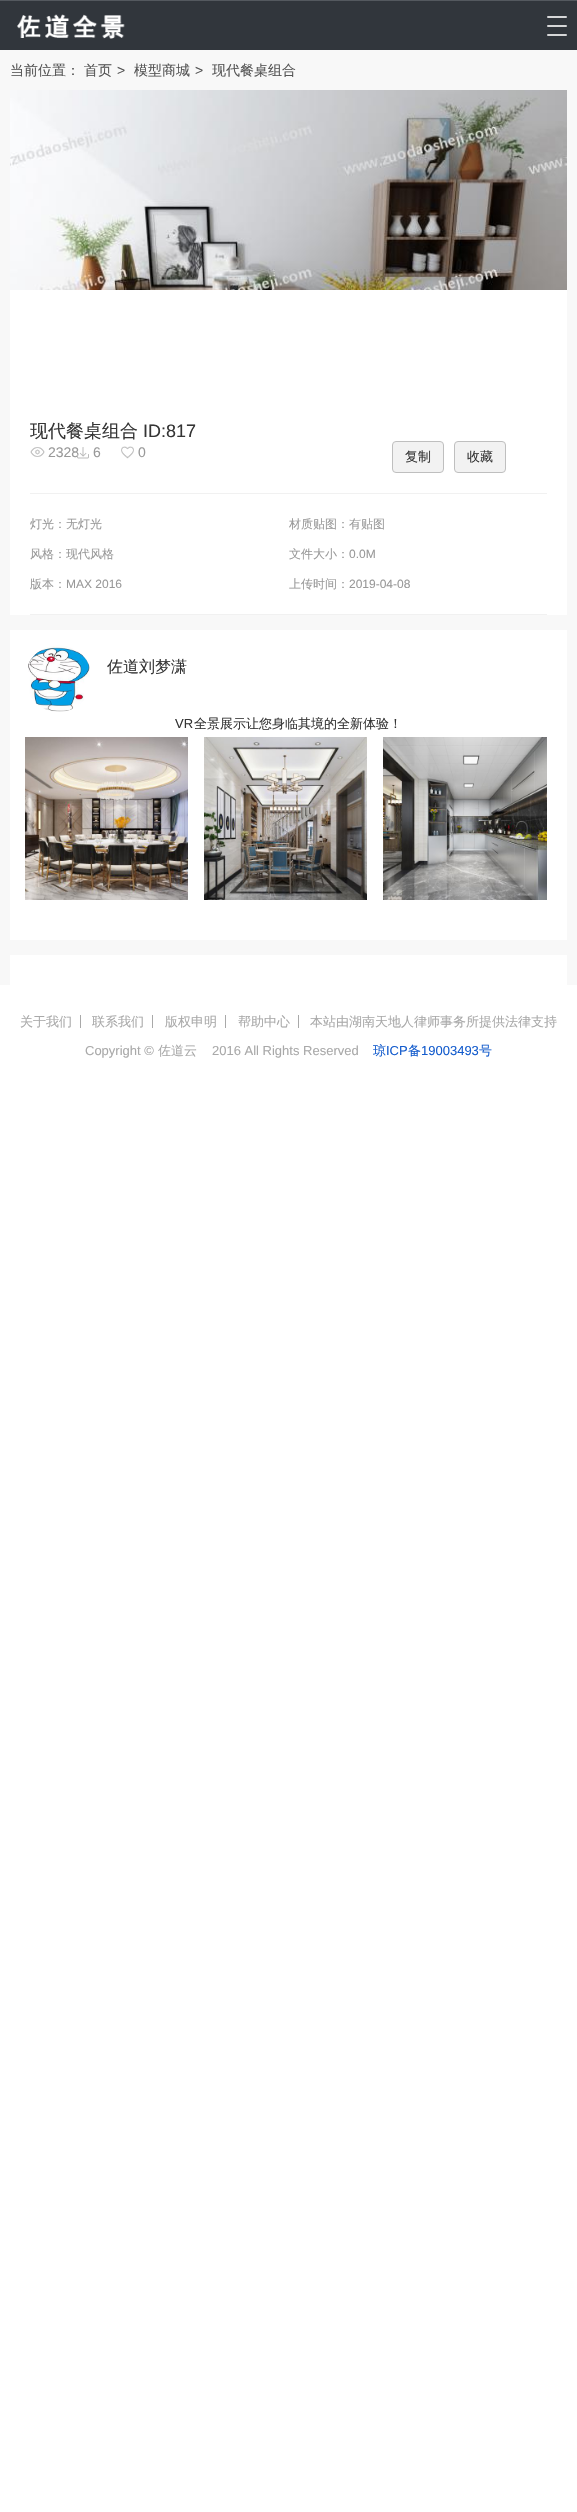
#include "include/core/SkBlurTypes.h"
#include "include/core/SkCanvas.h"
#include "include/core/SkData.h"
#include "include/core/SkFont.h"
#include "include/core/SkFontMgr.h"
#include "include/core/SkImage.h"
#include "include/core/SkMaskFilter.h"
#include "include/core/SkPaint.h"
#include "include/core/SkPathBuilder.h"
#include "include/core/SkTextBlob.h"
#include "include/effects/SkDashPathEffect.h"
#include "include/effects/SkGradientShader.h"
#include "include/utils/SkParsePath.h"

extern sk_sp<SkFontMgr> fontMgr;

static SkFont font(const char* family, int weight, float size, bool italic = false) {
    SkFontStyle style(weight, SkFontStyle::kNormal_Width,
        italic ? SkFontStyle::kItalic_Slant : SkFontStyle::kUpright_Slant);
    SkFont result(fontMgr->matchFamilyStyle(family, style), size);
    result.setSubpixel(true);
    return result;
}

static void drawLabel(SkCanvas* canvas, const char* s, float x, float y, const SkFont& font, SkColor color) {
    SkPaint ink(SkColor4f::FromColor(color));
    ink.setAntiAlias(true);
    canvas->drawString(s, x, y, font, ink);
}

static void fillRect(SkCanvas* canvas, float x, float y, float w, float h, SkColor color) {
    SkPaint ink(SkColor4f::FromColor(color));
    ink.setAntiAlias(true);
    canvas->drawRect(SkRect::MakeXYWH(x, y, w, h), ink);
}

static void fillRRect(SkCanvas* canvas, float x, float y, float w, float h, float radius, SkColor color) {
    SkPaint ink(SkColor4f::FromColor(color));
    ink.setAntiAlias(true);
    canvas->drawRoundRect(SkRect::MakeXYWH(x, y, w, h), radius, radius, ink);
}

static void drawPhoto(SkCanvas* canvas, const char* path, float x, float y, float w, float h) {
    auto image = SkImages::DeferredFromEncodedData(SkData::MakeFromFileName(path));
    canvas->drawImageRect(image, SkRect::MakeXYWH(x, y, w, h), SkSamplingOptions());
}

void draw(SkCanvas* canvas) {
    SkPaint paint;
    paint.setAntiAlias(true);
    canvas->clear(0xFFFFFFFF);
    fillRect(canvas, 0, 1, 577, 49, 0xFF31363C);
    fillRect(canvas, 0, 0, 577, 1, 0xFF54595F);
    drawPhoto(canvas, "assets/img1.png", 17, 14, 108, 25);
    fillRRect(canvas, 547, 16, 20, 2, 1, 0xFFD6D7D8);
    fillRRect(canvas, 547, 25, 20, 2, 1, 0xFFD6D7D8);
    fillRRect(canvas, 547, 34, 20, 2, 1, 0xFFD6D7D8);
    fillRect(canvas, 0, 50, 577, 935, 0xFFF8F8F8);
    SkFont font1 = font("WenQuanYi Zen Hei", 500, 14);
    drawLabel(canvas, "当前位置：", 10, 75, font1, 0xFF555555);
    drawLabel(canvas, "首页", 84, 75, font1, 0xFF555555);
    SkFont font2 = font("Liberation Sans", 400, 14);
    drawLabel(canvas, ">", 117, 75, font2, 0xFF555555);
    drawLabel(canvas, "模型商城", 134, 75, font1, 0xFF555555);
    drawLabel(canvas, ">", 195, 75, font2, 0xFF555555);
    drawLabel(canvas, "现代餐桌组合", 212, 75, font1, 0xFF555555);
    drawPhoto(canvas, "assets/img2.png", 10, 90, 557, 200);
    fillRect(canvas, 10, 290, 557, 325, 0xFFFFFFFF);
    fillRect(canvas, 30, 493, 517, 1, 0xFFF1F1F1);
    SkFont font3 = font("WenQuanYi Zen Hei", 500, 18);
    drawLabel(canvas, "现代餐桌组合", 30, 437, font3, 0xFF353535);
    SkFont font4 = font("Liberation Sans", 400, 18);
    drawLabel(canvas, "ID:817", 143, 437, font4, 0xFF353535);
    drawPhoto(canvas, "assets/img3.png", 30, 447, 15, 10);
    drawLabel(canvas, "2328", 48, 457, font2, 0xFF999999);
    drawPhoto(canvas, "assets/img4.png", 77, 447, 12, 12);
    drawLabel(canvas, "6", 93, 457, font2, 0xFF999999);
    drawPhoto(canvas, "assets/img5.png", 121, 446, 13, 13);
    drawLabel(canvas, "0", 138, 457, font2, 0xFF999999);
    paint.setColor(0xFFF2F2F2);
    canvas->drawRoundRect(SkRect::MakeXYWH(392.5f, 441.5f, 51, 31), 3.5f, 3.5f, paint);
    paint.setStroke(true);
    paint.setStrokeWidth(1);
    paint.setColor(0xFFBFBFBF);
    canvas->drawRoundRect(SkRect::MakeXYWH(392.5f, 441.5f, 51, 31), 3.5f, 3.5f, paint);
    SkFont font5 = font("WenQuanYi Zen Hei", 500, 13);
    drawLabel(canvas, "复制", 405, 461, font5, 0xFF353535);
    paint.setStroke(false);
    paint.setColor(0xFFF2F2F2);
    canvas->drawRoundRect(SkRect::MakeXYWH(454.5f, 441.5f, 51, 31), 3.5f, 3.5f, paint);
    paint.setStroke(true);
    paint.setColor(0xFFBFBFBF);
    canvas->drawRoundRect(SkRect::MakeXYWH(454.5f, 441.5f, 51, 31), 3.5f, 3.5f, paint);
    drawLabel(canvas, "收藏", 467, 461, font5, 0xFF353535);
    fillRect(canvas, 30, 614, 517, 1, 0xFFF1F1F1);
    SkFont font6 = font("WenQuanYi Zen Hei", 500, 12);
    drawLabel(canvas, "灯光：无灯光", 30, 528, font6, 0xFF999999);
    drawLabel(canvas, "风格：现代风格", 30, 558, font6, 0xFF999999);
    drawLabel(canvas, "版本：", 30, 588, font6, 0xFF999999);
    SkFont font7 = font("Liberation Sans", 400, 12);
    drawLabel(canvas, "MAX 2016", 66, 588, font7, 0xFF999999);
    drawLabel(canvas, "材质贴图：有贴图", 289, 528, font6, 0xFF999999);
    drawLabel(canvas, "文件大小：", 289, 558, font6, 0xFF999999);
    drawLabel(canvas, "0.0M", 349, 558, font7, 0xFF999999);
    drawLabel(canvas, "上传时间：", 289, 588, font6, 0xFF999999);
    drawLabel(canvas, "2019-04-08", 349, 588, font7, 0xFF999999);
    fillRect(canvas, 10, 630, 557, 310, 0xFFFFFFFF);
    drawPhoto(canvas, "assets/img6.png", 28, 645, 62, 67);
    SkFont font8 = font("WenQuanYi Zen Hei", 500, 16);
    drawLabel(canvas, "佐道刘梦潇", 107, 672, font8, 0xFF353535);
    SkFont font9 = font("Liberation Sans", 400, 13);
    drawLabel(canvas, "VR", 175, 728, font9, 0xFF353535);
    drawLabel(canvas, "全景展示让您身临其境的全新体验！", 194, 728, font5, 0xFF353535);
    drawPhoto(canvas, "assets/img7.png", 25, 737, 163, 163);
    drawPhoto(canvas, "assets/img8.png", 204, 737, 163, 163);
    drawPhoto(canvas, "assets/img9.png", 383, 737, 164, 163);
    fillRect(canvas, 10, 955, 557, 30, 0xFFFFFFFF);
    fillRect(canvas, 80, 1015, 1, 13, 0xFFA9A9A9);
    drawLabel(canvas, "关于我们", 20, 1026, font5, 0xFFA9A9A9);
    fillRect(canvas, 152, 1015, 1, 13, 0xFFA9A9A9);
    drawLabel(canvas, "联系我们", 92, 1026, font5, 0xFFA9A9A9);
    fillRect(canvas, 225, 1015, 1, 13, 0xFFA9A9A9);
    drawLabel(canvas, "版权申明", 165, 1026, font5, 0xFFA9A9A9);
    fillRect(canvas, 298, 1015, 1, 13, 0xFFA9A9A9);
    drawLabel(canvas, "帮助中心", 238, 1026, font5, 0xFFA9A9A9);
    drawLabel(canvas, "本站由湖南天地人律师事务所提供法律支持", 310, 1026, font5, 0xFFA9A9A9);
    drawLabel(canvas, "Copyright ©", 85, 1055, font9, 0xFFA9A9A9);
    drawLabel(canvas, "佐道云", 158, 1055, font5, 0xFFA9A9A9);
    drawLabel(canvas, "2016 All Rights Reserved", 212, 1055, font9, 0xFFA9A9A9);
    drawLabel(canvas, "琼", 373, 1055, font5, 0xFF145CCD);
    drawLabel(canvas, "ICP", 386, 1055, font9, 0xFF145CCD);
    drawLabel(canvas, "备", 408, 1055, font5, 0xFF145CCD);
    drawLabel(canvas, "19003493", 421, 1055, font9, 0xFF145CCD);
    drawLabel(canvas, "号", 479, 1055, font5, 0xFF145CCD);
}
